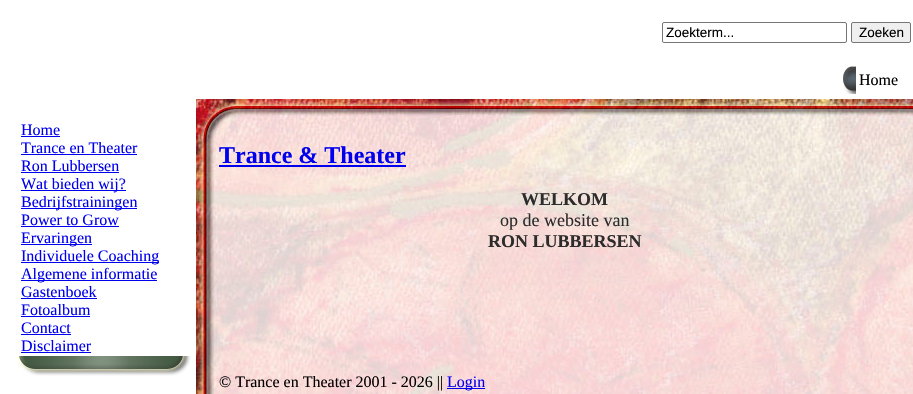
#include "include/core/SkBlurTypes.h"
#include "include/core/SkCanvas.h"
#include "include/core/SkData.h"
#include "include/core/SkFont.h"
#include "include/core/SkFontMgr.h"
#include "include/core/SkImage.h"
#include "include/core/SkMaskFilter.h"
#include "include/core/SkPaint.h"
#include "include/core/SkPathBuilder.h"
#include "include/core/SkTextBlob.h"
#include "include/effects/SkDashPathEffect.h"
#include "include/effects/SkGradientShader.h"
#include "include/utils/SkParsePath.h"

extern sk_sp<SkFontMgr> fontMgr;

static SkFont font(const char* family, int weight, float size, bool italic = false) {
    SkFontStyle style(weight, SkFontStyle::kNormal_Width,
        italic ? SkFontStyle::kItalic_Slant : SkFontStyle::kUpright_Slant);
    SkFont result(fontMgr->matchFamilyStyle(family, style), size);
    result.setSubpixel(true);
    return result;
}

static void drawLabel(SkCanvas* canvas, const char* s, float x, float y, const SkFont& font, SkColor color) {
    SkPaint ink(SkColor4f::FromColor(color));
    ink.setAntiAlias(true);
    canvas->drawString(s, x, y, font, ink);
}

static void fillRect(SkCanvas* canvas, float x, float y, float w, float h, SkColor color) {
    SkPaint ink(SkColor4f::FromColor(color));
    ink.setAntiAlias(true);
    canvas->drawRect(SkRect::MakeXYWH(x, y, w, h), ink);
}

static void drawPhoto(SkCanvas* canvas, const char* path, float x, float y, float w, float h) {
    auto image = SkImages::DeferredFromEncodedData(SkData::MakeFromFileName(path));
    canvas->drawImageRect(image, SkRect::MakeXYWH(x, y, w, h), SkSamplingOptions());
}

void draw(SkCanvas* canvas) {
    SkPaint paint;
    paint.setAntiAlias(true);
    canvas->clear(0xFFFFFFFF);
    paint.setStroke(true);
    paint.setStrokeWidth(1);
    paint.setColor(0xFF767676);
    canvas->drawRoundRect(SkRect::MakeXYWH(662.5f, 22.5f, 184, 20), 1.5f, 1.5f, paint);
    SkFont font1 = font("Liberation Sans", 400, 13.5f);
    drawLabel(canvas, "Zoekterm...", 666, 37, font1, 0xFF000000);
    paint.setStroke(false);
    paint.setColor(0xFFEFEFEF);
    canvas->drawRoundRect(SkRect::MakeXYWH(851.5f, 22.5f, 59, 20), 1.5f, 1.5f, paint);
    paint.setStroke(true);
    paint.setColor(0xFF767676);
    canvas->drawRoundRect(SkRect::MakeXYWH(851.5f, 22.5f, 59, 20), 1.5f, 1.5f, paint);
    drawLabel(canvas, "Zoeken", 859, 37, font1, 0xFF000000);
    drawPhoto(canvas, "assets/img1.png", 843, 66, 13, 28);
    SkFont font2 = font("Liberation Serif", 400, 16);
    drawLabel(canvas, "Home", 859, 85, font2, 0xFF000000);
    drawLabel(canvas, "Home", 21, 135, font2, 0xFF0000EE);
    fillRect(canvas, 21, 136, 39, 1, 0xFF0000EE);
    drawLabel(canvas, "Trance en Theater", 21, 153, font2, 0xFF0000EE);
    fillRect(canvas, 21, 154, 116, 1, 0xFF0000EE);
    drawLabel(canvas, "Ron Lubbersen", 21, 171, font2, 0xFF0000EE);
    fillRect(canvas, 21, 172, 98, 1, 0xFF0000EE);
    fillRect(canvas, 21, 190, 105, 1, 0xFF0000EE);
    drawLabel(canvas, "Wat bieden wij?", 21, 189, font2, 0xFF0000EE);
    fillRect(canvas, 21, 208, 116, 1, 0xFF0000EE);
    drawLabel(canvas, "Bedrijfstrainingen", 21, 207, font2, 0xFF0000EE);
    drawLabel(canvas, "Power to Grow", 21, 225, font2, 0xFF0000EE);
    fillRect(canvas, 21, 226, 98, 1, 0xFF0000EE);
    fillRect(canvas, 21, 244, 71, 1, 0xFF0000EE);
    drawLabel(canvas, "Ervaringen", 21, 243, font2, 0xFF0000EE);
    fillRect(canvas, 21, 262, 138, 1, 0xFF0000EE);
    drawLabel(canvas, "Individuele Coaching", 21, 261, font2, 0xFF0000EE);
    fillRect(canvas, 21, 280, 136, 1, 0xFF0000EE);
    drawLabel(canvas, "Algemene informatie", 21, 279, font2, 0xFF0000EE);
    drawLabel(canvas, "Gastenboek", 21, 297, font2, 0xFF0000EE);
    fillRect(canvas, 21, 298, 76, 1, 0xFF0000EE);
    drawLabel(canvas, "Fotoalbum", 21, 315, font2, 0xFF0000EE);
    fillRect(canvas, 21, 316, 69, 1, 0xFF0000EE);
    drawLabel(canvas, "Contact", 21, 333, font2, 0xFF0000EE);
    fillRect(canvas, 21, 334, 50, 1, 0xFF0000EE);
    drawLabel(canvas, "Disclaimer", 21, 351, font2, 0xFF0000EE);
    fillRect(canvas, 21, 352, 70, 1, 0xFF0000EE);
    drawPhoto(canvas, "assets/img2.png", 16, 356, 175, 20);
    drawPhoto(canvas, "assets/img3.png", 196, 99, 717, 295);
    SkFont font3 = font("Liberation Serif", 700, 24);
    drawLabel(canvas, "Trance & Theater", 219, 163, font3, 0xFF0000EE);
    fillRect(canvas, 219, 165, 187, 2, 0xFF0000EE);
    SkFont font4 = font("Liberation Serif", 700, 18);
    drawLabel(canvas, "WELKOM", 521, 205, font4, 0xFF2C2C2C);
    SkFont font5 = font("Liberation Serif", 400, 18);
    drawLabel(canvas, "op de website van", 500, 226, font5, 0xFF2C2C2C);
    drawLabel(canvas, "RON LUBBERSEN", 488, 247, font4, 0xFF2C2C2C);
    drawLabel(canvas, "© Trance en Theater 2001 - 2026 ||", 219, 387, font2, 0xFF000000);
    fillRect(canvas, 447, 388, 38, 1, 0xFF0000EE);
    drawLabel(canvas, "Login", 447, 387, font2, 0xFF0000EE);
}
